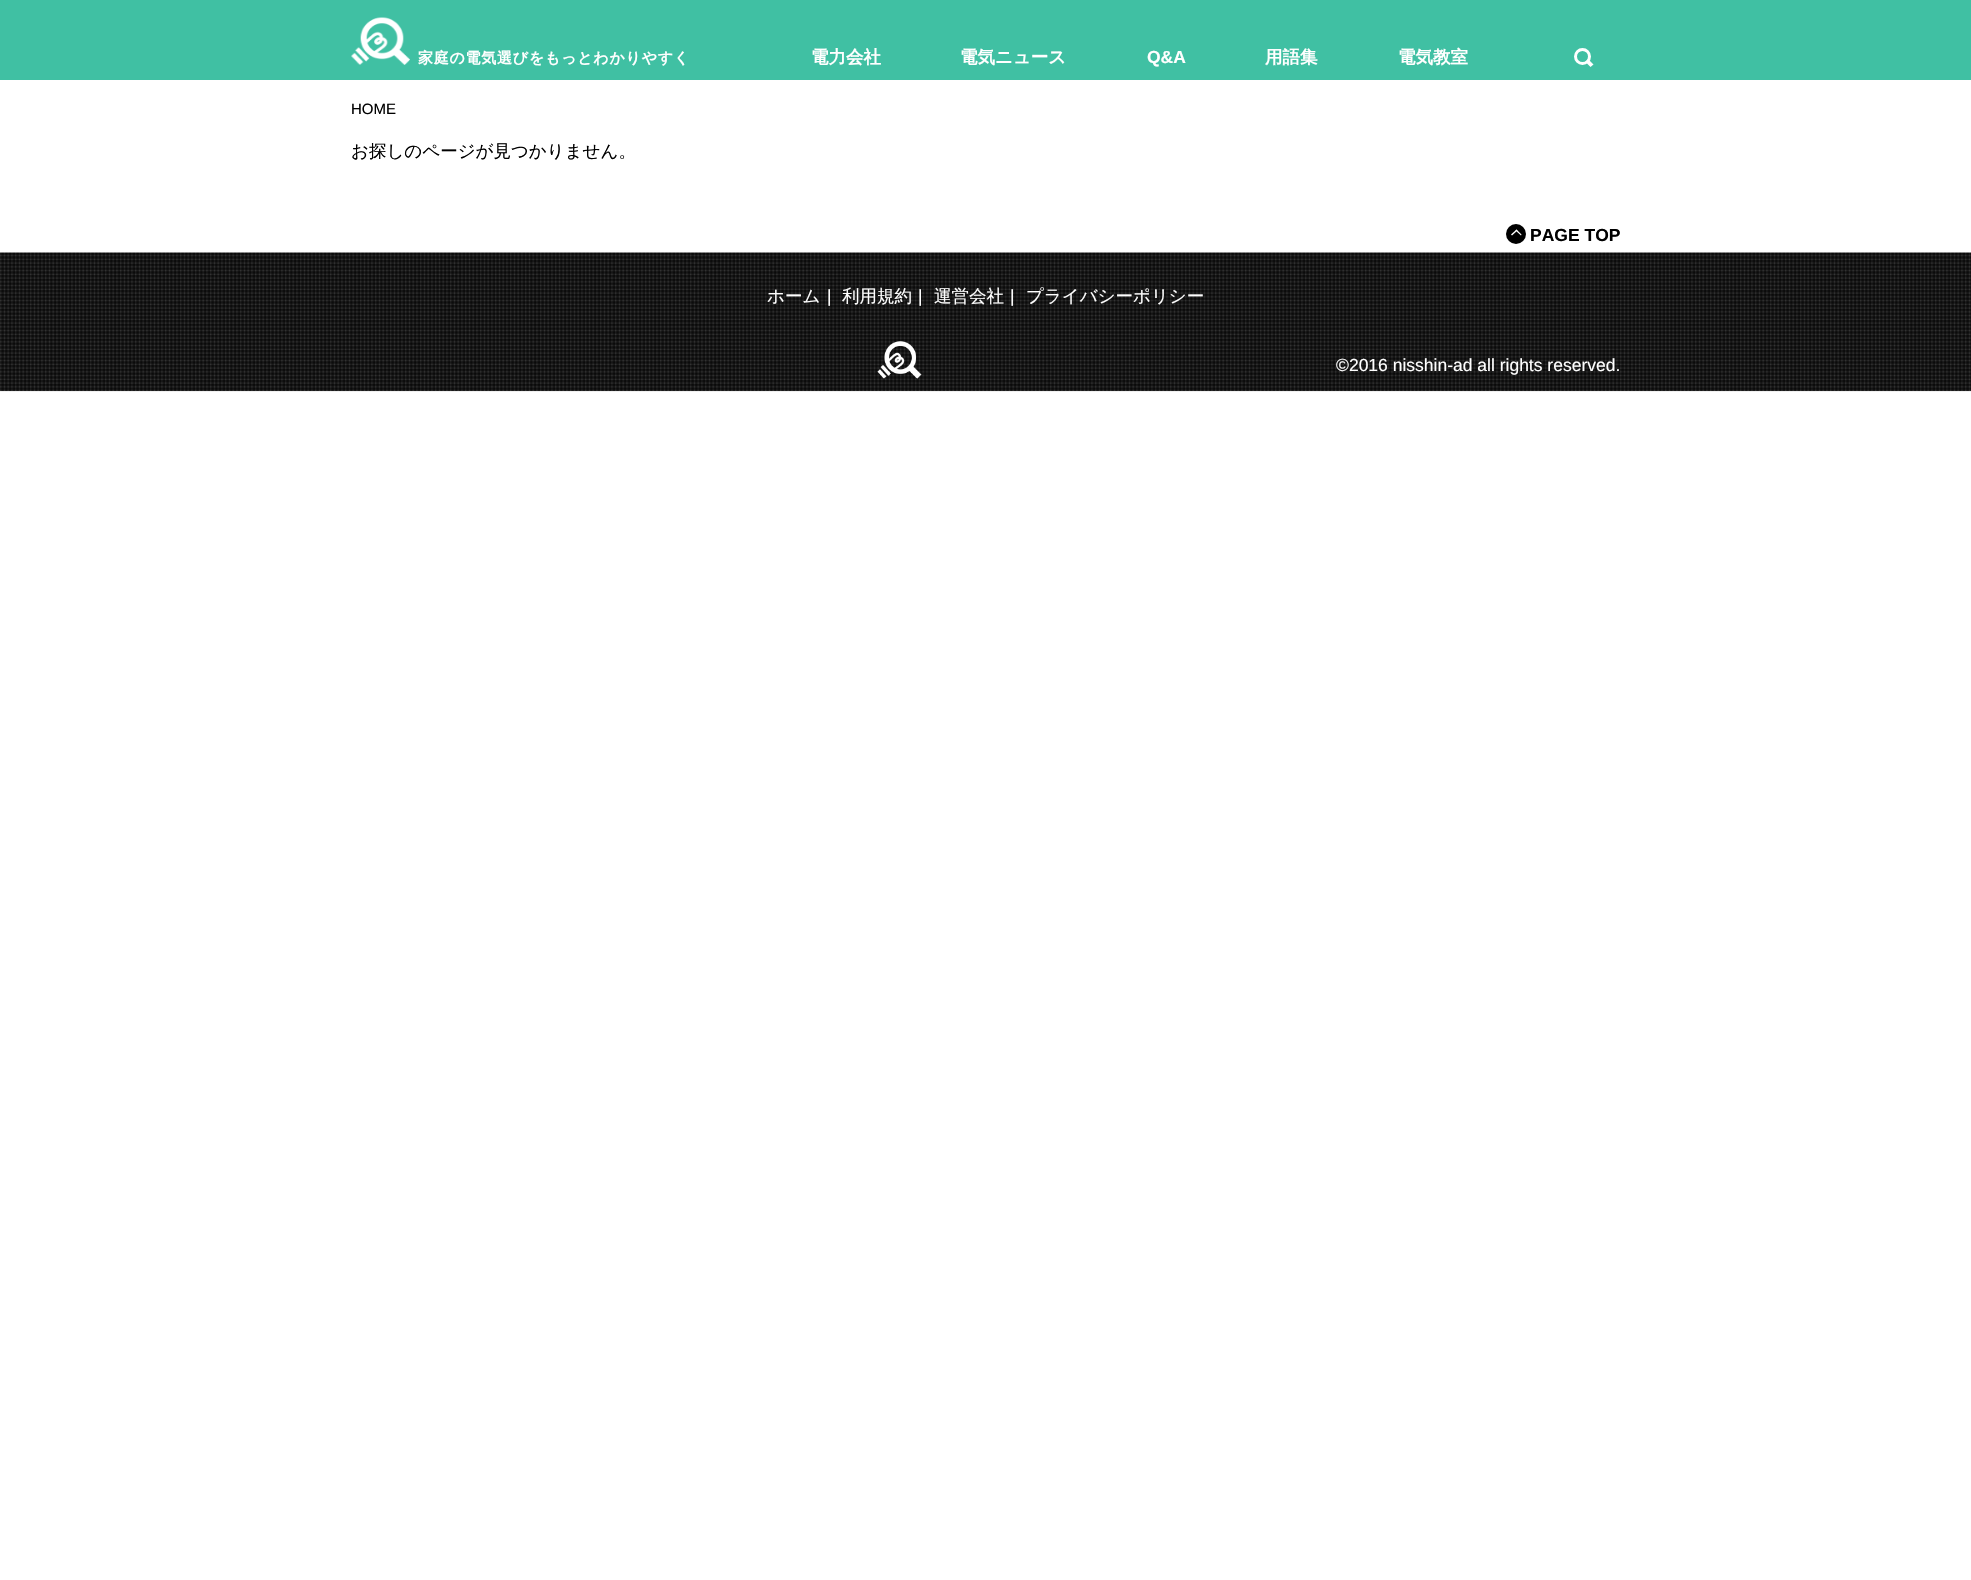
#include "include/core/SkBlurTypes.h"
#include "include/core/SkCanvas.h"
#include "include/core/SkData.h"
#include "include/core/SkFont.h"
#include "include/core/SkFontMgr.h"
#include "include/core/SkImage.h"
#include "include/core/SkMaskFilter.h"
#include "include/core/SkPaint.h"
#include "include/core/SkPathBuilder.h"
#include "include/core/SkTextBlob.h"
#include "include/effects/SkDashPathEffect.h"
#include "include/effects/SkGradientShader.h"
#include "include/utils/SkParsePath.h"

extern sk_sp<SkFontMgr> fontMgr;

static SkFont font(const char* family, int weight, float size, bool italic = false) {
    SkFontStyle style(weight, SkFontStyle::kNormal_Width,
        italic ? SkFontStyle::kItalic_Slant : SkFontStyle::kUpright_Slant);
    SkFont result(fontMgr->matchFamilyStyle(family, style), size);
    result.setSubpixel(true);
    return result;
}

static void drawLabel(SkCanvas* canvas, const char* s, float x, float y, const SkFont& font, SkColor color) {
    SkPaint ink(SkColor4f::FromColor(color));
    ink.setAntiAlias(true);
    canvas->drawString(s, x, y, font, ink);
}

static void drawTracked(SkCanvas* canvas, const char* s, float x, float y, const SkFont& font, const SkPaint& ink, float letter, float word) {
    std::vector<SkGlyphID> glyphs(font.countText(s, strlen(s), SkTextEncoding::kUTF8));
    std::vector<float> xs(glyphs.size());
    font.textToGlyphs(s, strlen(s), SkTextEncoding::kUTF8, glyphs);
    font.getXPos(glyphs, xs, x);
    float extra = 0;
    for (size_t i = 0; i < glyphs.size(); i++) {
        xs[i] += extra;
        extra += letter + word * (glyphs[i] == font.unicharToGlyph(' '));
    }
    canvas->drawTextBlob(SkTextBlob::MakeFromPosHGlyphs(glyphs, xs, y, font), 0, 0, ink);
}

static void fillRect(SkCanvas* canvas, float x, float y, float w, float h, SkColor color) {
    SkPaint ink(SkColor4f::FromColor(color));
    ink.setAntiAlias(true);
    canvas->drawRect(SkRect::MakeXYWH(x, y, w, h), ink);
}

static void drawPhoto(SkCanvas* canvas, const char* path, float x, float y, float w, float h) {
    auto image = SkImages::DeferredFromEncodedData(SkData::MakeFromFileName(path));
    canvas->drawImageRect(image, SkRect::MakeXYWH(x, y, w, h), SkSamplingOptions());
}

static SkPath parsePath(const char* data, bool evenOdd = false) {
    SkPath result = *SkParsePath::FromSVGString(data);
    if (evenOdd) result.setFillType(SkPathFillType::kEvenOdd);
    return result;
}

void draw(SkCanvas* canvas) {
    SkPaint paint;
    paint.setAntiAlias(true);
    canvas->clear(0xFFFFFFFF);
    fillRect(canvas, 0, 0, 1971, 80, 0xFF40C0A3);
    drawPhoto(canvas, "assets/img1.png", 351, 17, 59, 48);
    SkFont font1 = font("WenQuanYi Zen Hei", 700, 15);
    paint.setColor(0xFFFFFFFF);
    drawTracked(canvas, "家庭の電気選びをもっとわかりやすく", 418, 63, font1, paint, 0.75f, 0);
    SkFont font2 = font("WenQuanYi Zen Hei", 700, 17.5f);
    drawLabel(canvas, "電力会社", 811, 63, font2, 0xFFFFFFFF);
    drawLabel(canvas, "電気ニュース", 960, 63, font2, 0xFFFFFFFF);
    SkFont font3 = font("Liberation Sans", 700, 17.5f);
    drawLabel(canvas, "Q&A", 1147, 63, font3, 0xFFFFFFFF);
    drawLabel(canvas, "用語集", 1265, 63, font2, 0xFFFFFFFF);
    drawLabel(canvas, "電気教室", 1398, 63, font2, 0xFFFFFFFF);
    paint.setStroke(true);
    paint.setStrokeWidth(3);
    canvas->drawCircle(1582.5f, 56.5f, 7, paint);
    paint.setStroke(false);
    canvas->drawPath(parsePath("M1588 59L1593.5 64.5L1590.5 67L1585.5 62Z"), paint);
    SkFont font4 = font("Liberation Sans", 400, 15);
    drawLabel(canvas, "HOME", 351, 114, font4, 0xFF000000);
    SkFont font5 = font("WenQuanYi Zen Hei", 500, 17.5f);
    drawLabel(canvas, "お探しのページが見つかりません。", 351, 157, font5, 0xFF000000);
    drawPhoto(canvas, "assets/img2.png", 0, 252, 1971, 140);
    paint.setColor(0xFF000000);
    canvas->drawCircle(1516, 234, 10, paint);
    drawLabel(canvas, "PAGE TOP", 1530, 241, font3, 0xFF000000);
    paint.setColor(0xFFFFFFFF);
    canvas->drawPath(parsePath("M1512 235.5L1511 234.5L1516.5 229.5L1517.5 230.5Z"), paint);
    canvas->drawPath(parsePath("M1521 235.5L1515.5 230.5L1516.5 229.5L1521.5 234.5Z"), paint);
    drawLabel(canvas, "ホーム", 767, 302, font5, 0xFFFFFFFF);
    SkFont font6 = font("Liberation Sans", 400, 17.5f);
    drawLabel(canvas, "|", 827, 302, font6, 0xFFFFFFFF);
    drawLabel(canvas, "利用規約", 842, 302, font5, 0xFFFFFFFF);
    drawLabel(canvas, "|", 918, 302, font6, 0xFFFFFFFF);
    drawLabel(canvas, "運営会社", 934, 302, font5, 0xFFFFFFFF);
    drawLabel(canvas, "|", 1010, 302, font6, 0xFFFFFFFF);
    drawLabel(canvas, "プライバシーポリシー", 1026, 302, font5, 0xFFFFFFFF);
    drawPhoto(canvas, "assets/img3.png", 877, 341, 45, 38);
    drawLabel(canvas, "©2016 nisshin-ad all rights reserved.", 1336, 371, font6, 0xFFFFFFFF);
}
